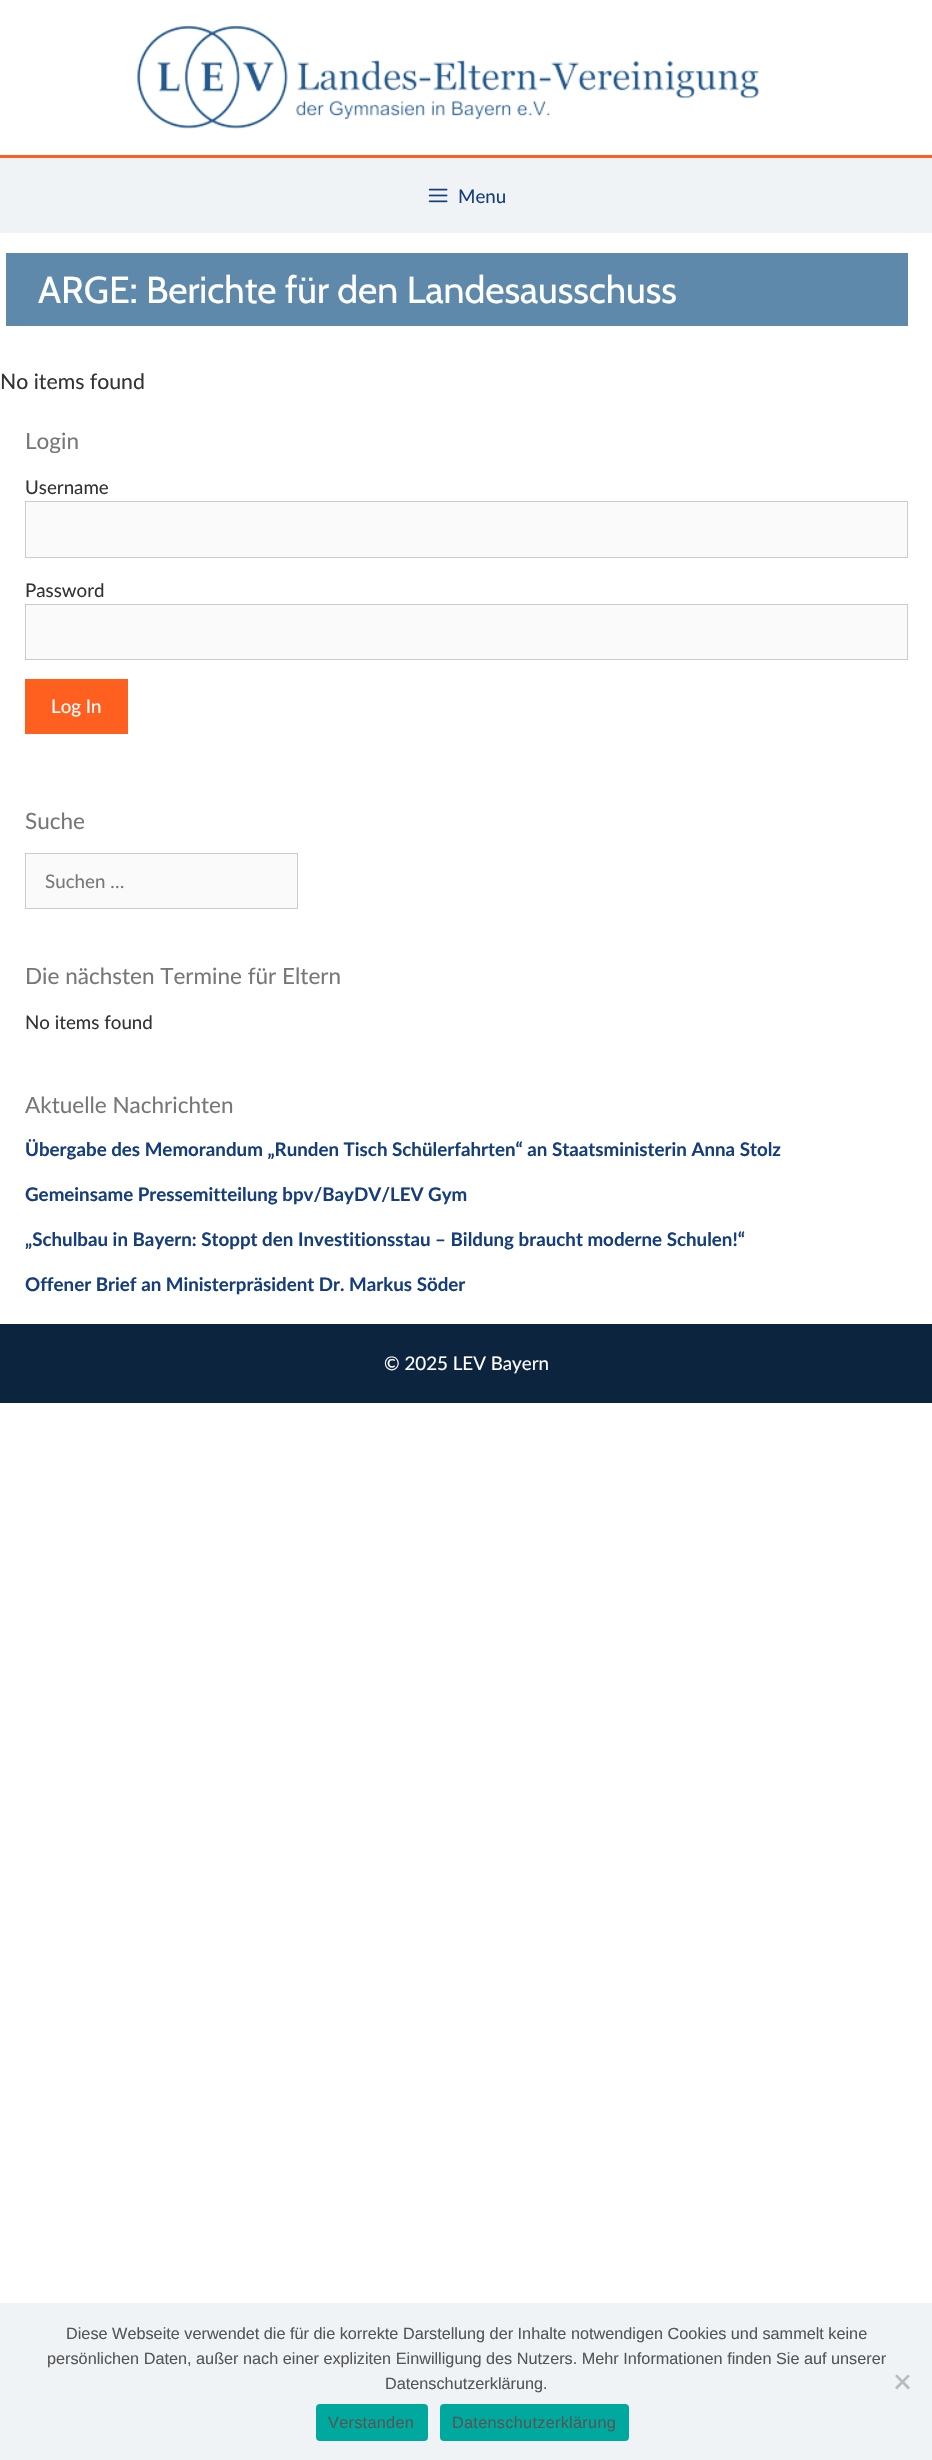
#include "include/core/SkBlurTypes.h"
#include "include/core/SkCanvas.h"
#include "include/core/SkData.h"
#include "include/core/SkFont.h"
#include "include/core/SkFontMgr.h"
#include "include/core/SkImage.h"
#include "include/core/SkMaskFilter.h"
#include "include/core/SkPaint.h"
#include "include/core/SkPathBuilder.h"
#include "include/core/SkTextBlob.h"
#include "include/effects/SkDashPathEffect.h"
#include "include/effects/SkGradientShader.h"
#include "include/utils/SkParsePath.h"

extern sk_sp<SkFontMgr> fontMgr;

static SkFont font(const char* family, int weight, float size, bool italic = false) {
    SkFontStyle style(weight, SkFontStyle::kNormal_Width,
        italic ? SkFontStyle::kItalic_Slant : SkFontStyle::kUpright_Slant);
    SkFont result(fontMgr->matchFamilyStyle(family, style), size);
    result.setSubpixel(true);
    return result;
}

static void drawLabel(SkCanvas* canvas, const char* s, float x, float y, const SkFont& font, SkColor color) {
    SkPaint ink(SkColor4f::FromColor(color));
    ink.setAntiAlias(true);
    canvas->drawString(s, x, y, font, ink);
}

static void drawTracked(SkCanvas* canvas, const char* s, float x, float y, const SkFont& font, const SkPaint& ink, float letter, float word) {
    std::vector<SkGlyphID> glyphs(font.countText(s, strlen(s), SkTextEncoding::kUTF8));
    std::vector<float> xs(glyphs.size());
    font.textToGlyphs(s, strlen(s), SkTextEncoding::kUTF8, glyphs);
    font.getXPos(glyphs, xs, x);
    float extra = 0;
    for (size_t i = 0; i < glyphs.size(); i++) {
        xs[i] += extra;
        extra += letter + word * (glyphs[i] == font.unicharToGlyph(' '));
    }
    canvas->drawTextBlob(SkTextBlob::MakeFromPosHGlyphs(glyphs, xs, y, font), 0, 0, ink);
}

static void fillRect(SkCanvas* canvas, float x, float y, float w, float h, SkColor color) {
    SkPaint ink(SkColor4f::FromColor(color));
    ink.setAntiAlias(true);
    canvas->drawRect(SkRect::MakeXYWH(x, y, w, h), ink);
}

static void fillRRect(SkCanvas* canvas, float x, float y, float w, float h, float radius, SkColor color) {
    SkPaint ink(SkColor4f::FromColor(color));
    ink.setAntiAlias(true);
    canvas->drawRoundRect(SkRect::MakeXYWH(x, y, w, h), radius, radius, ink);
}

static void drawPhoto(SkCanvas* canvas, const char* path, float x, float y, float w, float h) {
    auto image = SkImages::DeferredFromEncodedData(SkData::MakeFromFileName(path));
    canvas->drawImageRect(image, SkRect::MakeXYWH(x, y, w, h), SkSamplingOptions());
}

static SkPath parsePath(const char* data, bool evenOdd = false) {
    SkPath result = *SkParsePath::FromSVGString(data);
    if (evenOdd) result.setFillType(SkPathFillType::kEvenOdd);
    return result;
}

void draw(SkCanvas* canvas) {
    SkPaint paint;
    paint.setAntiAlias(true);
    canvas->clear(0xFFFFFFFF);
    fillRect(canvas, 0, 155, 932, 3, 0xFFFF6020);
    drawPhoto(canvas, "assets/img1.png", 136, 25, 623, 104);
    fillRect(canvas, 0, 158, 932, 75, 0xFFEFF3F6);
    drawPhoto(canvas, "assets/img2.png", 428, 188, 20, 15);
    SkFont font1 = font("Lato", 400, 18.75f);
    drawLabel(canvas, "Menu", 458, 203, font1, 0xFF163E7D);
    fillRect(canvas, 6, 253, 902, 73, 0xFF5E89AA);
    SkFont font2 = font("Cabin", 400, 37.5f);
    drawLabel(canvas, "ARGE: Berichte für den Landesausschuss", 38, 303, font2, 0xFFFFFFFF);
    SkFont font3 = font("Lato", 400, 21.25f);
    drawLabel(canvas, "No items found", 0, 389, font3, 0xFF333333);
    SkFont font4 = font("Lato", 400, 22.5f);
    drawLabel(canvas, "Login", 25, 449, font4, 0xFF777777);
    drawLabel(canvas, "Username", 25, 494, font1, 0xFF333333);
    paint.setColor(0xFFFAFAFA);
    canvas->drawRect(SkRect::MakeXYWH(25.5f, 501.5f, 882, 56), paint);
    paint.setStroke(true);
    paint.setStrokeWidth(1);
    paint.setColor(0xFFCCCCCC);
    canvas->drawRect(SkRect::MakeXYWH(25.5f, 501.5f, 882, 56), paint);
    drawLabel(canvas, "Password", 25, 597, font1, 0xFF333333);
    paint.setStroke(false);
    paint.setColor(0xFFFAFAFA);
    canvas->drawRect(SkRect::MakeXYWH(25.5f, 604.5f, 882, 55), paint);
    paint.setStroke(true);
    paint.setColor(0xFFCCCCCC);
    canvas->drawRect(SkRect::MakeXYWH(25.5f, 604.5f, 882, 55), paint);
    fillRect(canvas, 25, 679, 103, 55, 0xFFFF6020);
    drawLabel(canvas, "Log In", 51, 713, font1, 0xFFFFFFFF);
    drawLabel(canvas, "Suche", 25, 829, font4, 0xFF777777);
    paint.setStroke(false);
    paint.setColor(0xFFFAFAFA);
    canvas->drawRect(SkRect::MakeXYWH(25.5f, 853.5f, 272, 55), paint);
    paint.setStroke(true);
    paint.setColor(0xFFCCCCCC);
    canvas->drawRect(SkRect::MakeXYWH(25.5f, 853.5f, 272, 55), paint);
    drawLabel(canvas, "Suchen …", 45, 888, font1, 0xFF777777);
    drawLabel(canvas, "Die nächsten Termine für Eltern", 25, 984, font4, 0xFF777777);
    drawLabel(canvas, "No items found", 25, 1029, font1, 0xFF333333);
    drawLabel(canvas, "Aktuelle Nachrichten", 25, 1113, font4, 0xFF777777);
    SkFont font5 = font("Lato", 700, 18.75f);
    drawLabel(canvas, "Übergabe des Memorandum „Runden Tisch Schülerfahrten“ an Staatsministerin Anna Stolz", 25, 1156, font5, 0xFF163E7D);
    drawLabel(canvas, "Gemeinsame Pressemitteilung bpv/BayDV/LEV Gym", 25, 1201, font5, 0xFF163E7D);
    drawLabel(canvas, "„Schulbau in Bayern: Stoppt den Investitionsstau – Bildung braucht moderne Schulen!“", 25, 1246, font5, 0xFF163E7D);
    drawLabel(canvas, "Offener Brief an Ministerpräsident Dr. Markus Söder", 25, 1291, font5, 0xFF163E7D);
    fillRect(canvas, 0, 1324, 932, 79, 0xFF0D243F);
    drawLabel(canvas, "© 2025 LEV Bayern", 384, 1370, font1, 0xFFFFFFFF);
    fillRect(canvas, 0, 2303, 932, 157, 0xFFEFF3F6);
    SkFont font6 = font("Liberation Sans", 400, 16.25f);
    drawLabel(canvas, "Diese Webseite verwendet die für die korrekte Darstellung der Inhalte notwendigen Cookies und sammelt keine", 66, 2339, font6, 0xFF555555);
    drawLabel(canvas, "persönlichen Daten, außer nach einer expliziten Einwilligung des Nutzers. Mehr Informationen finden Sie auf unserer", 47, 2364, font6, 0xFF555555);
    drawLabel(canvas, "Datenschutzerklärung.", 385, 2389, font6, 0xFF555555);
    paint.setStroke(false);
    paint.setColor(0xFFB8BABB);
    canvas->drawPath(parsePath("M908 2374.5L910 2376L897 2389.5L895 2387.5Z"), paint);
    canvas->drawPath(parsePath("M895 2376L897 2374.5L910 2387.5L908 2389.5Z"), paint);
    fillRRect(canvas, 316, 2404, 112, 37, 4, 0xFF00A99D);
    paint.setColor(0xFF555555);
    drawTracked(canvas, "Verstanden", 328, 2428, font6, paint, 0.3f, 0);
    fillRRect(canvas, 440, 2404, 189, 37, 4, 0xFF00A99D);
    drawTracked(canvas, "Datenschutzerklärung", 452, 2428, font6, paint, 0.3f, 0);
}
